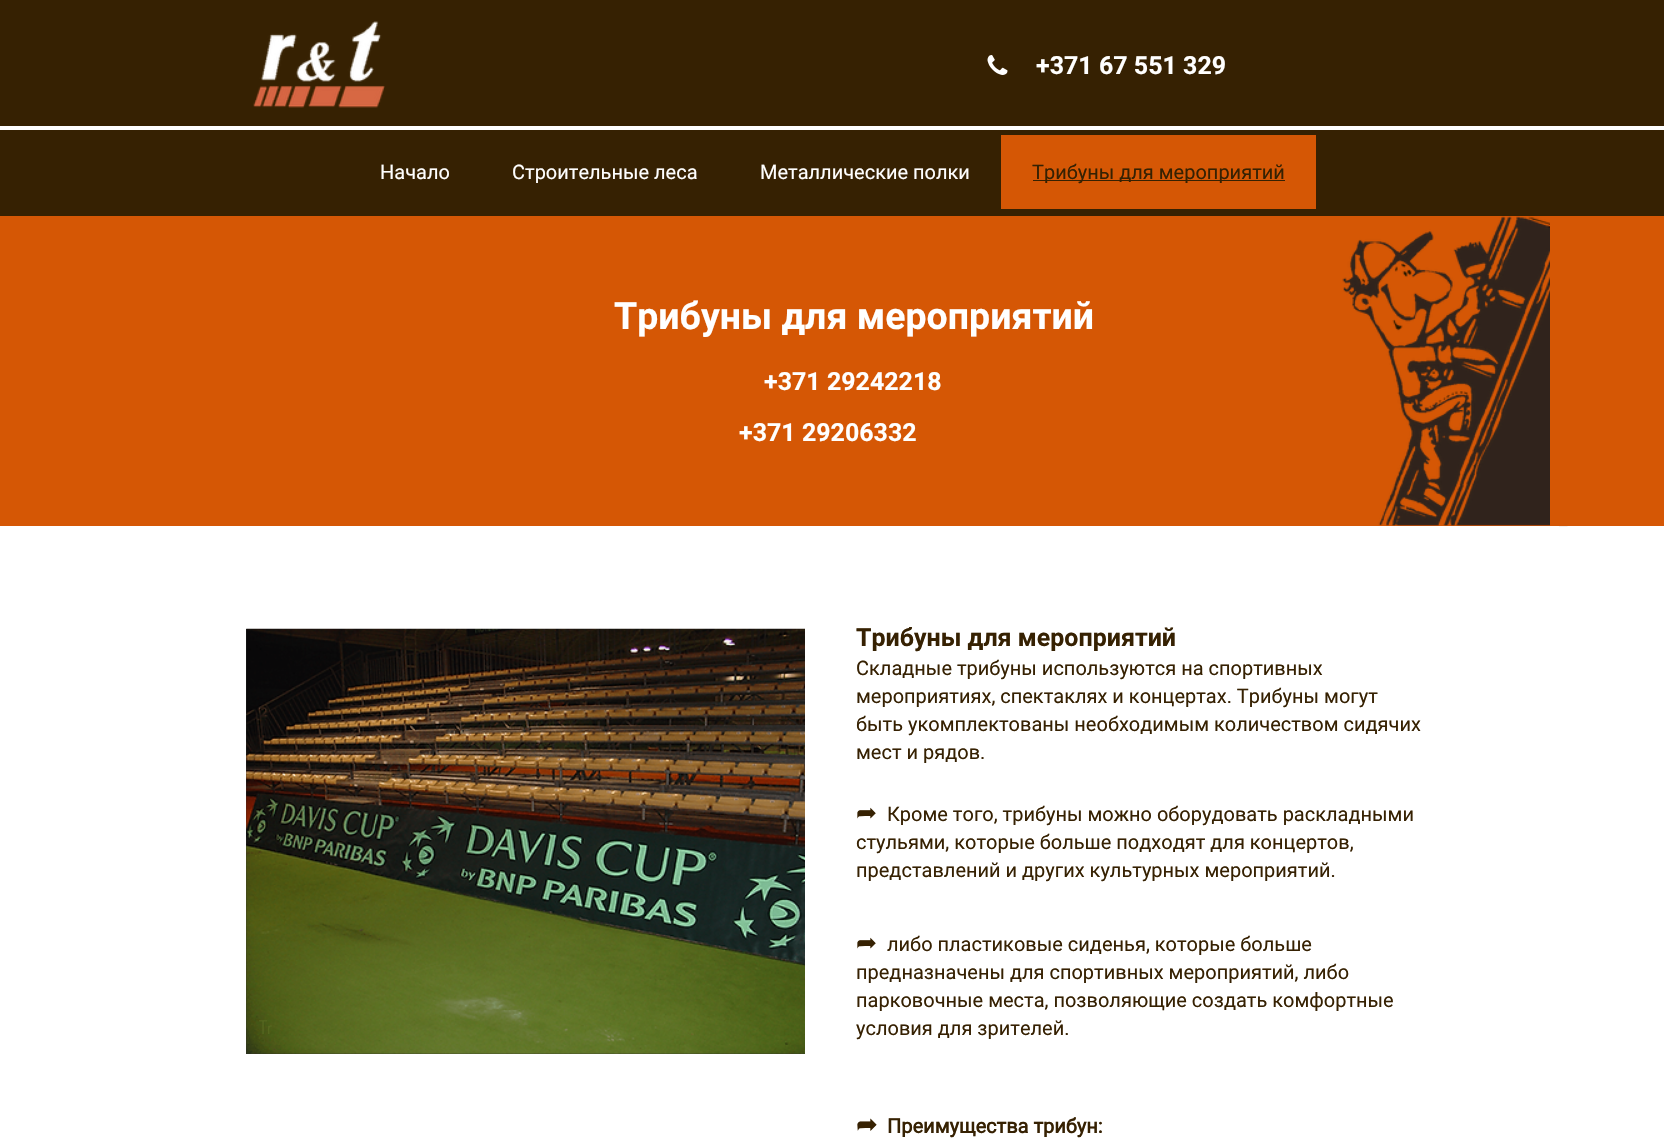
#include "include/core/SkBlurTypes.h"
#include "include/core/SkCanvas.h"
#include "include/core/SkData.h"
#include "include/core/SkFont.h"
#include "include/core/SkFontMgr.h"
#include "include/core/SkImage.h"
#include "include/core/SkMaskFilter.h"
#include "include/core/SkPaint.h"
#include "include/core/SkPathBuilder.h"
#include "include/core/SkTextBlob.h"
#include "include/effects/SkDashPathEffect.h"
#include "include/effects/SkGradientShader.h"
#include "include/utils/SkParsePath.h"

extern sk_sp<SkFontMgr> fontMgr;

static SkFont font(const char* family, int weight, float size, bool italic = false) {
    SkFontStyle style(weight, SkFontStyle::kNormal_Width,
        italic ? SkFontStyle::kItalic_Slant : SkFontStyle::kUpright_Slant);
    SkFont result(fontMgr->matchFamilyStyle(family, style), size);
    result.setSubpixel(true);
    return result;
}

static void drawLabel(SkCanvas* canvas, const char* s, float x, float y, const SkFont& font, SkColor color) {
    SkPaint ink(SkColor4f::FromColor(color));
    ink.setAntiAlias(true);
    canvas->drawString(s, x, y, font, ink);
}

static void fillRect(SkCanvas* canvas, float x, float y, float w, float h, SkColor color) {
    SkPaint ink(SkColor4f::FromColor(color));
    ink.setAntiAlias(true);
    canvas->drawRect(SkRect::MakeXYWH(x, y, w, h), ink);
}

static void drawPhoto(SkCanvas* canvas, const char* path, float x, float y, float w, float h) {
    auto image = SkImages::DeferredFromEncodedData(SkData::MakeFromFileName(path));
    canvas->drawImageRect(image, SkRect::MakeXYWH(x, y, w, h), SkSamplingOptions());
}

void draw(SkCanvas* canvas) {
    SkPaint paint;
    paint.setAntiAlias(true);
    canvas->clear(0xFFFFFFFF);
    fillRect(canvas, 0, 0, 1664, 126, 0xFF362102);
    drawPhoto(canvas, "assets/img1.png", 253, 21, 132, 87);
    drawPhoto(canvas, "assets/img2.png", 987, 55, 21, 20);
    SkFont font1 = font("Roboto", 700, 25);
    drawLabel(canvas, "+371 67 551 329", 1036, 74, font1, 0xFFFFFFFF);
    fillRect(canvas, 0, 130, 1664, 86, 0xFF362102);
    SkFont font2 = font("Roboto", 400, 20);
    drawLabel(canvas, "Начало", 380, 179, font2, 0xFFFFFFFF);
    drawLabel(canvas, "Строительные леса", 512, 179, font2, 0xFFFFFFFF);
    drawLabel(canvas, "Металлические полки", 760, 179, font2, 0xFFFFFFFF);
    fillRect(canvas, 1001, 135, 315, 74, 0xFFD55705);
    fillRect(canvas, 1033, 180, 252, 1, 0xFF362102);
    drawLabel(canvas, "Трибуны для мероприятий", 1032, 179, font2, 0xFF362102);
    fillRect(canvas, 0, 216, 1664, 310, 0xFFD55705);
    SkFont font3 = font("Roboto", 700, 37.5f);
    drawLabel(canvas, "Трибуны для мероприятий", 614, 329, font3, 0xFFFFFFFF);
    drawPhoto(canvas, "assets/img3.png", 1342, 216, 208, 310);
    drawLabel(canvas, "+371 29242218", 764, 390, font1, 0xFFFFFFFF);
    drawLabel(canvas, "+371 29206332", 739, 441, font1, 0xFFFFFFFF);
    drawPhoto(canvas, "assets/img4.png", 1559, 526, 9, 1);
    drawLabel(canvas, "Трибуны для мероприятий", 856, 646, font1, 0xFF362102);
    drawLabel(canvas, "Складные трибуны используются на спортивных", 856, 675, font2, 0xFF362102);
    drawLabel(canvas, "мероприятиях, спектаклях и концертах. Трибуны могут", 856, 703, font2, 0xFF362102);
    drawLabel(canvas, "быть укомплектованы необходимым количеством сидячих", 856, 731, font2, 0xFF362102);
    drawLabel(canvas, "мест и рядов.", 856, 759, font2, 0xFF362102);
    SkFont font4 = font("DejaVu Sans", 400, 25);
    drawLabel(canvas, "➦", 856, 821, font4, 0xFF362102);
    drawLabel(canvas, "Кроме того, трибуны можно оборудовать раскладными", 887, 821, font2, 0xFF362102);
    drawLabel(canvas, "стульями, которые больше подходят для концертов,", 856, 849, font2, 0xFF362102);
    drawLabel(canvas, "представлений и других культурных мероприятий.", 856, 877, font2, 0xFF362102);
    fillRect(canvas, 246, 629, 559, 425, 0xFF2F2E2E);
    drawPhoto(canvas, "assets/img5.png", 246, 628, 559, 426);
    SkFont font5 = font("futura", 300, 18);
    drawLabel(canvas, "Tr", 259, 1034, font5, 0xFF596B21);
    drawLabel(canvas, "➦", 856, 951, font4, 0xFF362102);
    drawLabel(canvas, "либо пластиковые сиденья, которые больше", 887, 951, font2, 0xFF362102);
    drawLabel(canvas, "предназначены для спортивных мероприятий, либо", 856, 979, font2, 0xFF362102);
    drawLabel(canvas, "парковочные места, позволяющие создать комфортные", 856, 1007, font2, 0xFF362102);
    drawLabel(canvas, "условия для зрителей.", 856, 1035, font2, 0xFF362102);
    SkFont font6 = font("DejaVu Sans", 700, 25);
    drawLabel(canvas, "➦", 856, 1133, font6, 0xFF362102);
    SkFont font7 = font("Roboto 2", 700, 20);
    drawLabel(canvas, "Преимущества трибун:", 887, 1133, font7, 0xFF362102);
}
